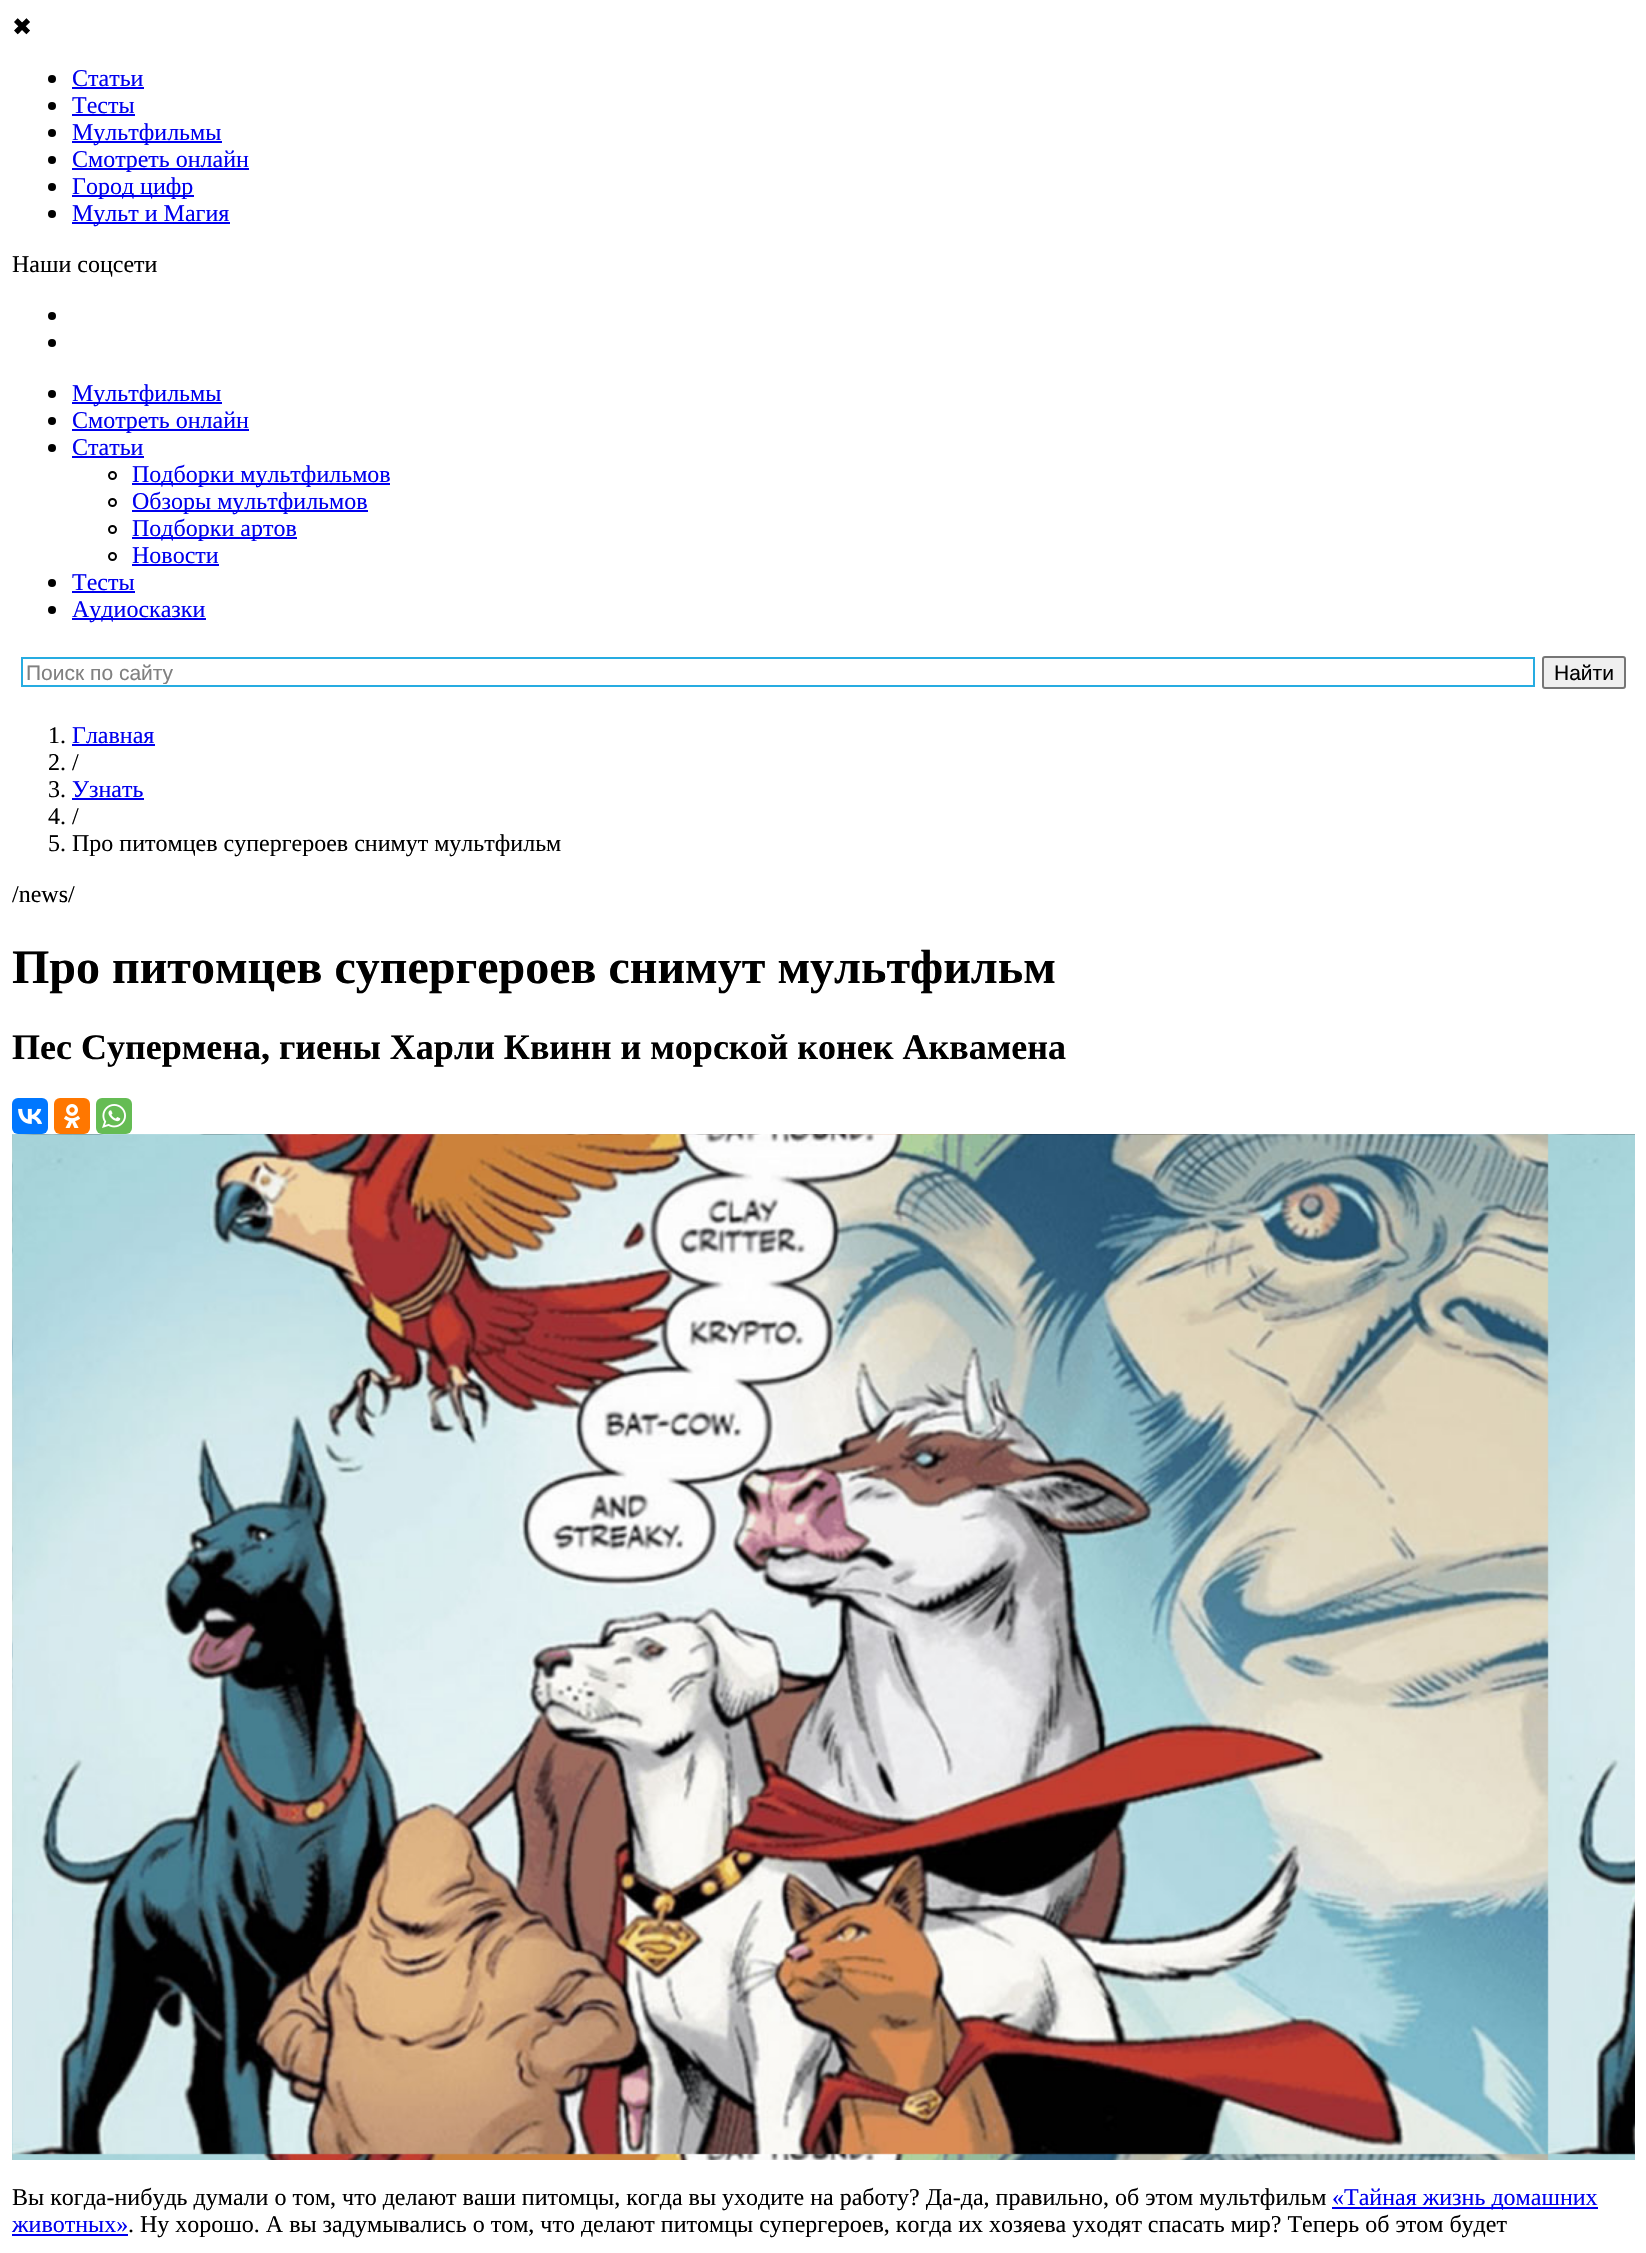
#include "include/core/SkBlurTypes.h"
#include "include/core/SkCanvas.h"
#include "include/core/SkData.h"
#include "include/core/SkFont.h"
#include "include/core/SkFontMgr.h"
#include "include/core/SkImage.h"
#include "include/core/SkMaskFilter.h"
#include "include/core/SkPaint.h"
#include "include/core/SkPathBuilder.h"
#include "include/core/SkTextBlob.h"
#include "include/effects/SkDashPathEffect.h"
#include "include/effects/SkGradientShader.h"
#include "include/utils/SkParsePath.h"

extern sk_sp<SkFontMgr> fontMgr;

static SkFont font(const char* family, int weight, float size, bool italic = false) {
    SkFontStyle style(weight, SkFontStyle::kNormal_Width,
        italic ? SkFontStyle::kItalic_Slant : SkFontStyle::kUpright_Slant);
    SkFont result(fontMgr->matchFamilyStyle(family, style), size);
    result.setSubpixel(true);
    return result;
}

static void drawLabel(SkCanvas* canvas, const char* s, float x, float y, const SkFont& font, SkColor color) {
    SkPaint ink(SkColor4f::FromColor(color));
    ink.setAntiAlias(true);
    canvas->drawString(s, x, y, font, ink);
}

static void fillRect(SkCanvas* canvas, float x, float y, float w, float h, SkColor color) {
    SkPaint ink(SkColor4f::FromColor(color));
    ink.setAntiAlias(true);
    canvas->drawRect(SkRect::MakeXYWH(x, y, w, h), ink);
}

static void fillRRect(SkCanvas* canvas, float x, float y, float w, float h, float radius, SkColor color) {
    SkPaint ink(SkColor4f::FromColor(color));
    ink.setAntiAlias(true);
    canvas->drawRoundRect(SkRect::MakeXYWH(x, y, w, h), radius, radius, ink);
}

static void drawPhoto(SkCanvas* canvas, const char* path, float x, float y, float w, float h) {
    auto image = SkImages::DeferredFromEncodedData(SkData::MakeFromFileName(path));
    canvas->drawImageRect(image, SkRect::MakeXYWH(x, y, w, h), SkSamplingOptions());
}

void draw(SkCanvas* canvas) {
    SkPaint paint;
    paint.setAntiAlias(true);
    canvas->clear(0xFFFFFFFF);
    SkFont font1 = font("DejaVu Sans", 400, 24);
    drawLabel(canvas, "✖", 12, 35, font1, 0xFF000000);
    paint.setColor(0xFF000000);
    canvas->drawCircle(52, 79, 4, paint);
    SkFont font2 = font("Liberation Serif", 400, 24);
    drawLabel(canvas, "Статьи", 72, 86, font2, 0xFF0000EE);
    fillRect(canvas, 72, 87, 72, 2, 0xFF0000EE);
    canvas->drawCircle(52, 106, 4, paint);
    drawLabel(canvas, "Тесты", 72, 113, font2, 0xFF0000EE);
    fillRect(canvas, 72, 114, 63, 2, 0xFF0000EE);
    canvas->drawCircle(52, 133, 4, paint);
    fillRect(canvas, 72, 141, 150, 2, 0xFF0000EE);
    drawLabel(canvas, "Мультфильмы", 72, 140, font2, 0xFF0000EE);
    canvas->drawCircle(52, 160, 4, paint);
    fillRect(canvas, 72, 168, 177, 2, 0xFF0000EE);
    drawLabel(canvas, "Смотреть онлайн", 72, 167, font2, 0xFF0000EE);
    canvas->drawCircle(52, 187, 4, paint);
    fillRect(canvas, 72, 195, 122, 2, 0xFF0000EE);
    drawLabel(canvas, "Город цифр", 72, 194, font2, 0xFF0000EE);
    canvas->drawCircle(52, 214, 4, paint);
    fillRect(canvas, 72, 222, 158, 2, 0xFF0000EE);
    drawLabel(canvas, "Мульт и Магия", 72, 221, font2, 0xFF0000EE);
    drawLabel(canvas, "Наши соцсети", 12, 272, font2, 0xFF000000);
    canvas->drawCircle(52, 316, 4, paint);
    canvas->drawCircle(52, 343, 4, paint);
    canvas->drawCircle(52, 394, 4, paint);
    fillRect(canvas, 72, 402, 150, 2, 0xFF0000EE);
    drawLabel(canvas, "Мультфильмы", 72, 401, font2, 0xFF0000EE);
    canvas->drawCircle(52, 421, 4, paint);
    fillRect(canvas, 72, 429, 177, 2, 0xFF0000EE);
    drawLabel(canvas, "Смотреть онлайн", 72, 428, font2, 0xFF0000EE);
    canvas->drawCircle(52, 448, 4, paint);
    drawLabel(canvas, "Статьи", 72, 455, font2, 0xFF0000EE);
    fillRect(canvas, 72, 456, 72, 2, 0xFF0000EE);
    paint.setStroke(true);
    paint.setStrokeWidth(2);
    canvas->drawCircle(112.5f, 475.5f, 3.5f, paint);
    fillRect(canvas, 132, 483, 258, 2, 0xFF0000EE);
    drawLabel(canvas, "Подборки мультфильмов", 132, 482, font2, 0xFF0000EE);
    canvas->drawCircle(112.5f, 502.5f, 3.5f, paint);
    fillRect(canvas, 132, 510, 236, 2, 0xFF0000EE);
    drawLabel(canvas, "Обзоры мультфильмов", 132, 509, font2, 0xFF0000EE);
    canvas->drawCircle(112.5f, 529.5f, 3.5f, paint);
    fillRect(canvas, 132, 537, 165, 2, 0xFF0000EE);
    drawLabel(canvas, "Подборки артов", 132, 536, font2, 0xFF0000EE);
    canvas->drawCircle(112.5f, 556.5f, 3.5f, paint);
    drawLabel(canvas, "Новости", 132, 563, font2, 0xFF0000EE);
    fillRect(canvas, 132, 564, 87, 2, 0xFF0000EE);
    paint.setStroke(false);
    canvas->drawCircle(52, 583, 4, paint);
    drawLabel(canvas, "Тесты", 72, 590, font2, 0xFF0000EE);
    fillRect(canvas, 72, 591, 63, 2, 0xFF0000EE);
    canvas->drawCircle(52, 610, 4, paint);
    fillRect(canvas, 72, 618, 134, 2, 0xFF0000EE);
    drawLabel(canvas, "Аудиосказки", 72, 617, font2, 0xFF0000EE);
    paint.setStroke(true);
    paint.setColor(0xFF26ACE1);
    canvas->drawRect(SkRect::MakeXYWH(22, 658, 1512, 28), paint);
    canvas->save();
    canvas->clipRect(SkRect::MakeXYWH(26, 660, 1483, 24));
    SkFont font3 = font("Liberation Sans", 400, 21);
    drawLabel(canvas, "Поиск по сайту", 26, 680, font3, 0xFF808080);
    canvas->restore();
    paint.setStroke(false);
    paint.setColor(0xFFEFEFEF);
    canvas->drawRoundRect(SkRect::MakeXYWH(1543, 657, 82, 31), 2, 2, paint);
    paint.setStroke(true);
    paint.setColor(0xFF767676);
    canvas->drawRoundRect(SkRect::MakeXYWH(1543, 657, 82, 31), 2, 2, paint);
    drawLabel(canvas, "Найти", 1554, 680, font3, 0xFF000000);
    drawLabel(canvas, "1.", 48, 743, font2, 0xFF000000);
    drawLabel(canvas, "Главная", 72, 743, font2, 0xFF0000EE);
    fillRect(canvas, 72, 744, 83, 2, 0xFF0000EE);
    drawLabel(canvas, "2. /", 48, 770, font2, 0xFF000000);
    drawLabel(canvas, "3.", 48, 797, font2, 0xFF000000);
    drawLabel(canvas, "Узнать", 72, 797, font2, 0xFF0000EE);
    fillRect(canvas, 72, 798, 72, 2, 0xFF0000EE);
    drawLabel(canvas, "4. /", 48, 824, font2, 0xFF000000);
    drawLabel(canvas, "5. Про питомцев супергероев снимут мультфильм", 48, 851, font2, 0xFF000000);
    drawLabel(canvas, "/news/", 12, 902, font2, 0xFF000000);
    SkFont font4 = font("Liberation Serif", 700, 48);
    drawLabel(canvas, "Про питомцев супергероев снимут мультфильм", 12, 983, font4, 0xFF000000);
    SkFont font5 = font("Liberation Serif", 700, 36);
    drawLabel(canvas, "Пес Супермена, гиены Харли Квинн и морской конек Аквамена", 12, 1059, font5, 0xFF000000);
    fillRRect(canvas, 12, 1098, 36, 36, 6, 0xFF0077FF);
    drawPhoto(canvas, "assets/img1.png", 18, 1108, 24, 16);
    fillRRect(canvas, 54, 1098, 36, 36, 6, 0xFFFF7700);
    drawPhoto(canvas, "assets/img2.png", 64, 1104, 17, 24);
    fillRRect(canvas, 96, 1098, 36, 36, 6, 0xFF65BC54);
    drawPhoto(canvas, "assets/img3.png", 102, 1104, 24, 24);
    drawPhoto(canvas, "assets/img4.png", 12, 1134, 1623, 1026);
    drawLabel(canvas, "Вы когда-нибудь думали о том, что делают ваши питомцы, когда вы уходите на работу? Да-да, правильно, об этом мультфильм", 12, 2205, font2, 0xFF000000);
    fillRect(canvas, 1332, 2207, 266, 2, 0xFF0000EE);
    drawLabel(canvas, "«Тайная жизнь домашних", 1332, 2205, font2, 0xFF0000EE);
    drawLabel(canvas, "животных»", 12, 2232, font2, 0xFF0000EE);
    fillRect(canvas, 12, 2234, 116, 2, 0xFF0000EE);
    drawLabel(canvas, ". Ну хорошо. А вы задумывались о том, что делают питомцы супергероев, когда их хозяева уходят спасать мир? Теперь об этом будет", 128, 2232, font2, 0xFF000000);
}
